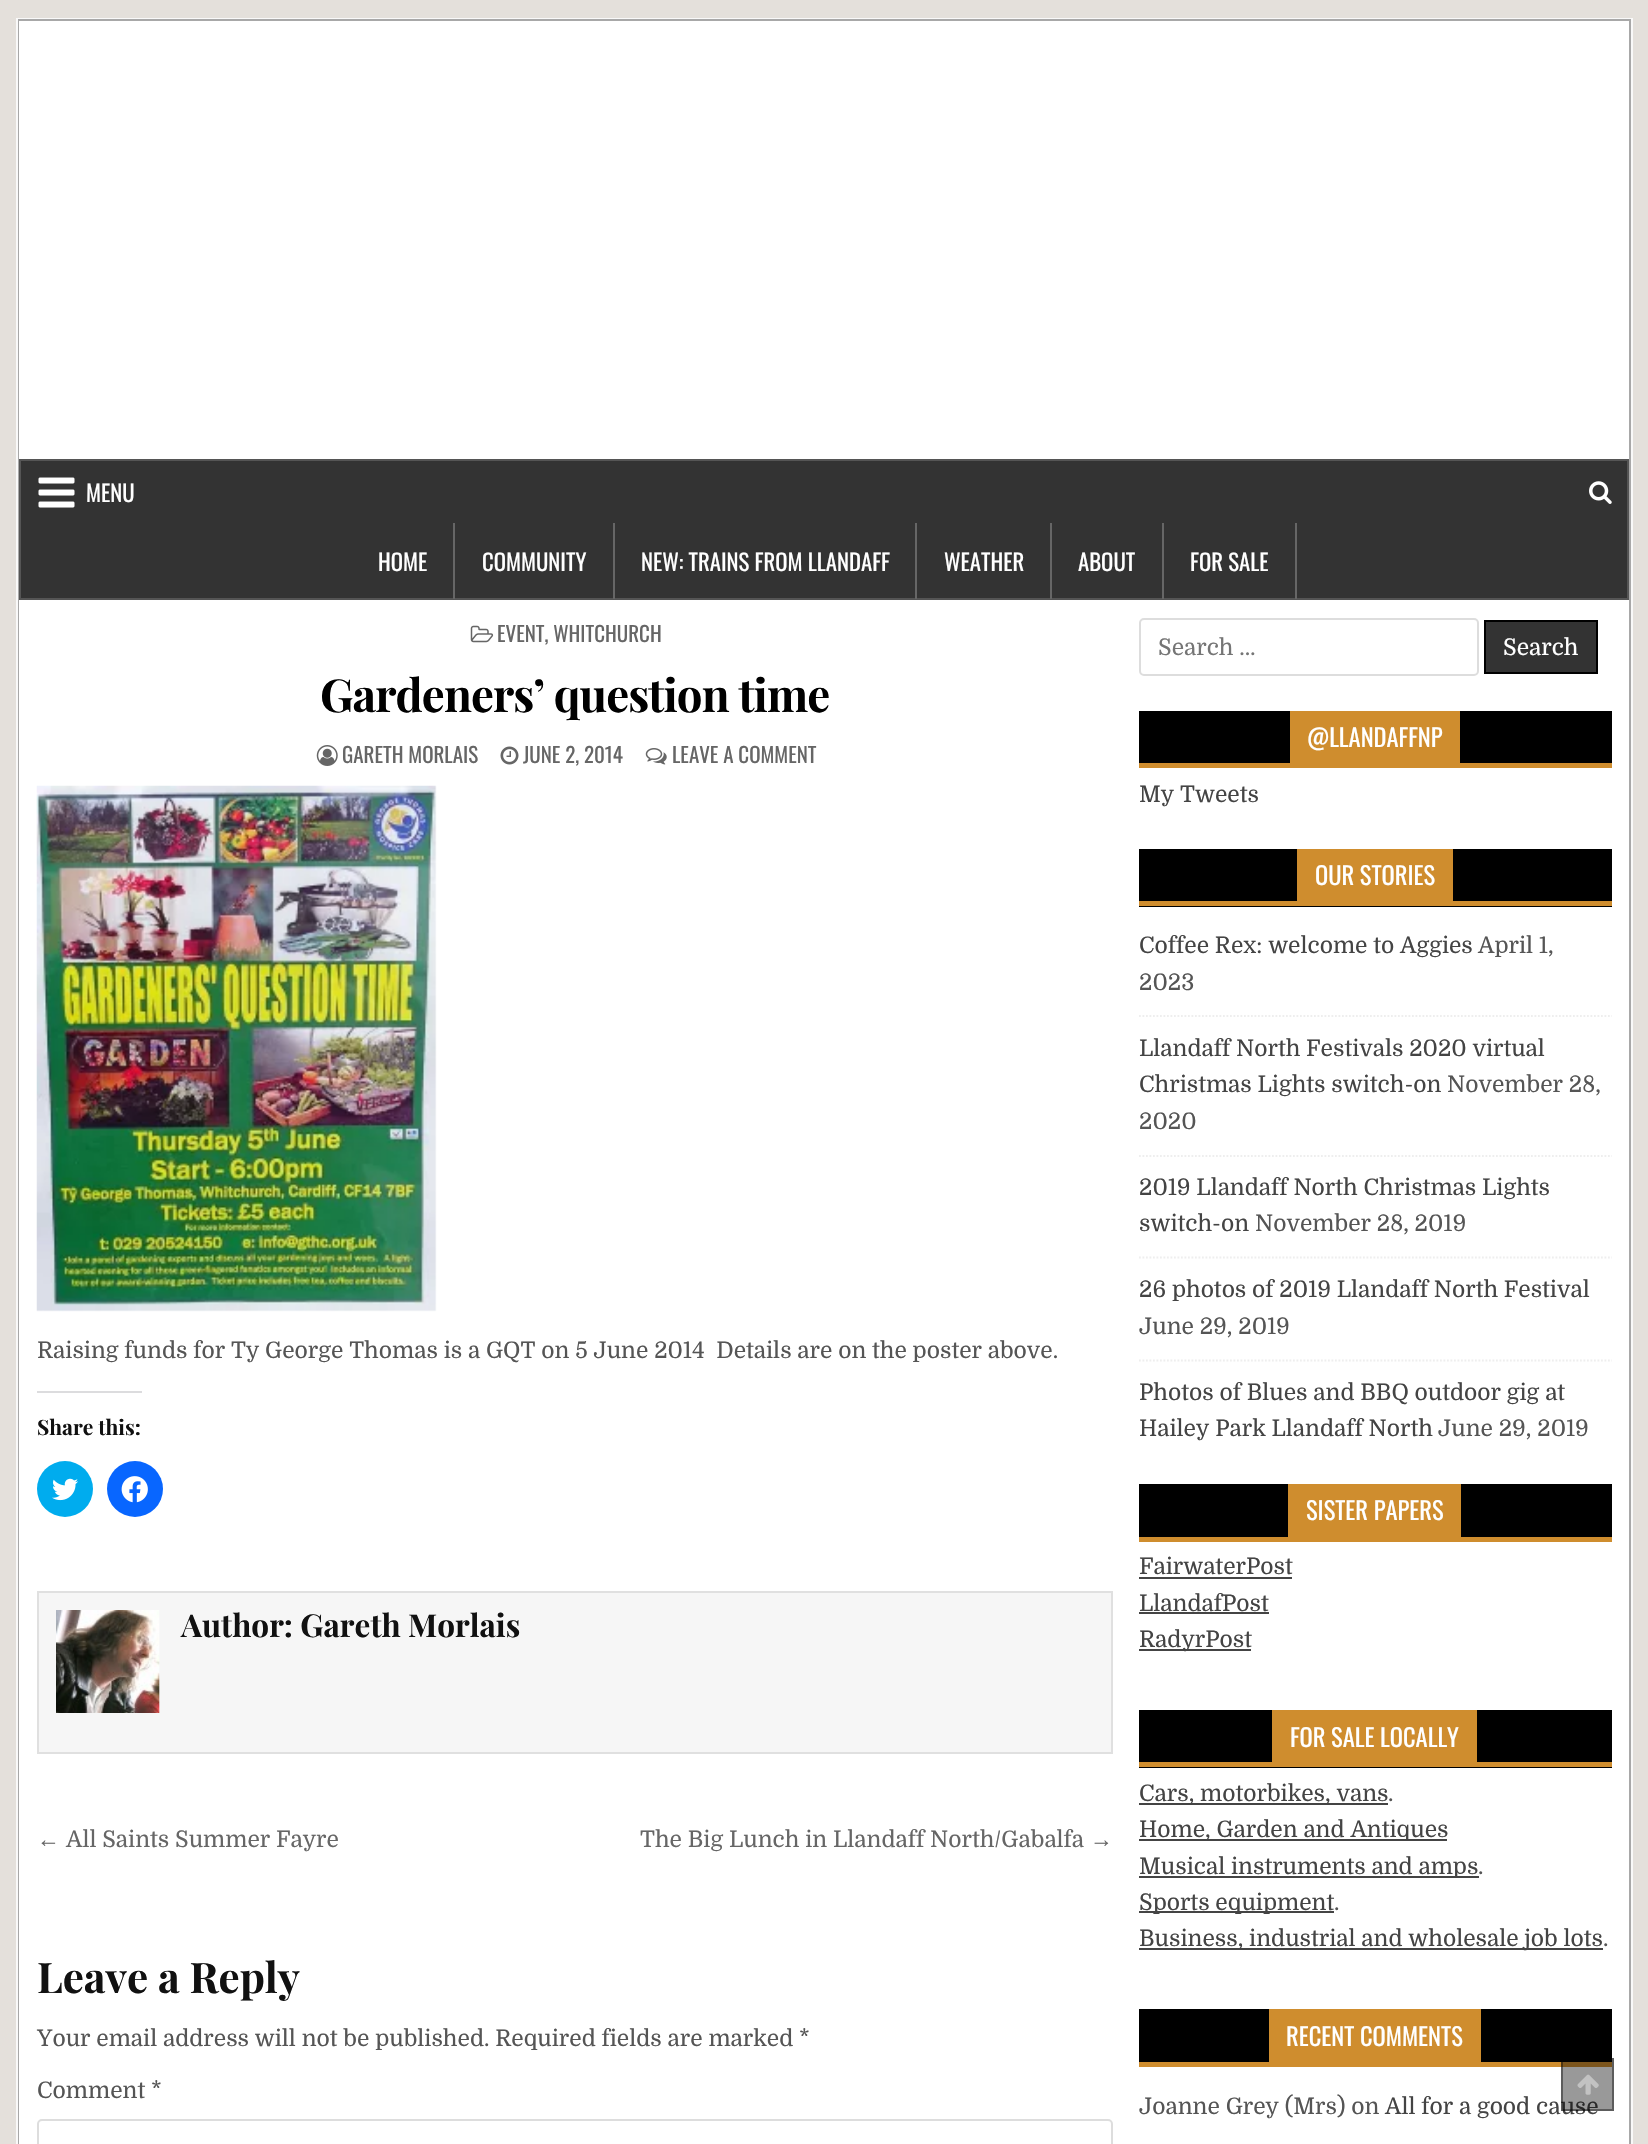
#include "include/core/SkBlurTypes.h"
#include "include/core/SkCanvas.h"
#include "include/core/SkData.h"
#include "include/core/SkFont.h"
#include "include/core/SkFontMgr.h"
#include "include/core/SkImage.h"
#include "include/core/SkMaskFilter.h"
#include "include/core/SkPaint.h"
#include "include/core/SkPathBuilder.h"
#include "include/core/SkTextBlob.h"
#include "include/effects/SkDashPathEffect.h"
#include "include/effects/SkGradientShader.h"
#include "include/utils/SkParsePath.h"

extern sk_sp<SkFontMgr> fontMgr;

static SkFont font(const char* family, int weight, float size, bool italic = false) {
    SkFontStyle style(weight, SkFontStyle::kNormal_Width,
        italic ? SkFontStyle::kItalic_Slant : SkFontStyle::kUpright_Slant);
    SkFont result(fontMgr->matchFamilyStyle(family, style), size);
    result.setSubpixel(true);
    return result;
}

static void drawLabel(SkCanvas* canvas, const char* s, float x, float y, const SkFont& font, SkColor color) {
    SkPaint ink(SkColor4f::FromColor(color));
    ink.setAntiAlias(true);
    canvas->drawString(s, x, y, font, ink);
}

static void drawTracked(SkCanvas* canvas, const char* s, float x, float y, const SkFont& font, const SkPaint& ink, float letter, float word) {
    std::vector<SkGlyphID> glyphs(font.countText(s, strlen(s), SkTextEncoding::kUTF8));
    std::vector<float> xs(glyphs.size());
    font.textToGlyphs(s, strlen(s), SkTextEncoding::kUTF8, glyphs);
    font.getXPos(glyphs, xs, x);
    float extra = 0;
    for (size_t i = 0; i < glyphs.size(); i++) {
        xs[i] += extra;
        extra += letter + word * (glyphs[i] == font.unicharToGlyph(' '));
    }
    canvas->drawTextBlob(SkTextBlob::MakeFromPosHGlyphs(glyphs, xs, y, font), 0, 0, ink);
}

static void fillRect(SkCanvas* canvas, float x, float y, float w, float h, SkColor color) {
    SkPaint ink(SkColor4f::FromColor(color));
    ink.setAntiAlias(true);
    canvas->drawRect(SkRect::MakeXYWH(x, y, w, h), ink);
}

static void drawPhoto(SkCanvas* canvas, const char* path, float x, float y, float w, float h) {
    auto image = SkImages::DeferredFromEncodedData(SkData::MakeFromFileName(path));
    canvas->drawImageRect(image, SkRect::MakeXYWH(x, y, w, h), SkSamplingOptions());
}

static SkPath parsePath(const char* data, bool evenOdd = false) {
    SkPath result = *SkParsePath::FromSVGString(data);
    if (evenOdd) result.setFillType(SkPathFillType::kEvenOdd);
    return result;
}

void draw(SkCanvas* canvas) {
    SkPaint paint;
    paint.setAntiAlias(true);
    canvas->clear(0xFFE4E0DB);
    paint.setStroke(true);
    paint.setStrokeWidth(2);
    paint.setColor(0xFFF9F9F9);
    canvas->drawRect(SkRect::MakeXYWH(17, 19, 1615, 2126), paint);
    paint.setColor(0xFFA8A8A8);
    canvas->drawRect(SkRect::MakeXYWH(19, 20, 1611, 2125), paint);
    fillRect(canvas, 19, 21, 1610, 438, 0xFFFFFFFF);
    paint.setStroke(false);
    paint.setColor(0xFF333333);
    canvas->drawRect(SkRect::MakeXYWH(20, 460, 1608, 139), paint);
    paint.setStroke(true);
    paint.setColor(0xFF555555);
    canvas->drawRect(SkRect::MakeXYWH(20, 460, 1608, 139), paint);
    drawPhoto(canvas, "assets/img1.png", 38, 477, 37, 31);
    SkFont font1 = font("Oswald", 400, 22.75f);
    drawLabel(canvas, "MENU", 86, 502, font1, 0xFFFFFFFF);
    fillRect(canvas, 453, 523, 2, 76, 0xFF666666);
    drawLabel(canvas, "HOME", 378, 571, font1, 0xFFFFFFFF);
    fillRect(canvas, 613, 523, 2, 76, 0xFF666666);
    drawLabel(canvas, "COMMUNITY", 482, 571, font1, 0xFFFFFFFF);
    fillRect(canvas, 915, 523, 2, 76, 0xFF666666);
    drawLabel(canvas, "NEW: TRAINS FROM LLANDAFF", 641, 571, font1, 0xFFFFFFFF);
    fillRect(canvas, 1050, 523, 2, 76, 0xFF666666);
    drawLabel(canvas, "WEATHER", 944, 571, font1, 0xFFFFFFFF);
    fillRect(canvas, 1162, 523, 2, 76, 0xFF666666);
    drawLabel(canvas, "ABOUT", 1078, 571, font1, 0xFFFFFFFF);
    fillRect(canvas, 1295, 523, 2, 76, 0xFF666666);
    drawLabel(canvas, "FOR SALE", 1190, 571, font1, 0xFFFFFFFF);
    drawPhoto(canvas, "assets/img2.png", 1589, 481, 23, 23);
    fillRect(canvas, 19, 600, 1610, 1544, 0xFFFFFFFF);
    drawPhoto(canvas, "assets/img3.png", 470, 625, 24, 18);
    SkFont font2 = font("Oswald", 400, 21);
    drawLabel(canvas, "EVENT, WHITCHURCH", 497, 642, font2, 0xFF666666);
    SkFont font3 = font("Playfair Display", 700, 45.5f);
    paint.setStroke(false);
    paint.setColor(0xFF000000);
    drawTracked(canvas, "Gardeners’ question time", 320, 712, font3, paint, -0.9f, 0);
    drawPhoto(canvas, "assets/img4.png", 316, 745, 22, 21);
    drawLabel(canvas, "GARETH MORLAIS", 342, 763, font2, 0xFF666666);
    drawPhoto(canvas, "assets/img5.png", 500, 746, 19, 19);
    drawLabel(canvas, "JUNE 2, 2014", 523, 763, font2, 0xFF666666);
    drawPhoto(canvas, "assets/img6.png", 645, 748, 22, 17);
    drawLabel(canvas, "LEAVE A COMMENT", 672, 763, font2, 0xFF666666);
    drawPhoto(canvas, "assets/img7.png", 36, 785, 401, 527);
    SkFont font4 = font("Domine", 400, 22.75f);
    drawLabel(canvas, "Raising funds for Ty George Thomas is a GQT on 5 June 2014  Details are on the poster above.", 37, 1358, font4, 0xFF555555);
    fillRect(canvas, 37, 1391, 105, 2, 0xFFDCDCDE);
    SkFont font5 = font("Playfair Display", 700, 21);
    drawLabel(canvas, "Share this:", 37, 1435, font5, 0xFF111111);
    paint.setColor(0xFF00ACEE);
    canvas->drawCircle(65, 1489, 28, paint);
    drawPhoto(canvas, "assets/img8.png", 52, 1478, 26, 23);
    paint.setColor(0xFF0866FF);
    canvas->drawCircle(135, 1489, 28, paint);
    drawPhoto(canvas, "assets/img9.png", 121, 1476, 27, 27);
    paint.setColor(0xFFF6F6F6);
    canvas->drawRect(SkRect::MakeXYWH(38, 1592, 1074, 161), paint);
    paint.setStroke(true);
    paint.setColor(0xFFE0E0E0);
    canvas->drawRect(SkRect::MakeXYWH(38, 1592, 1074, 161), paint);
    drawPhoto(canvas, "assets/img10.png", 56, 1610, 104, 103);
    SkFont font6 = font("Playfair Display", 700, 31.5f);
    drawLabel(canvas, "Author: Gareth Morlais", 181, 1637, font6, 0xFF111111);
    SkFont font7 = font("Liberation Sans", 400, 22.75f);
    drawLabel(canvas, "←", 37, 1847, font7, 0xFF666666);
    drawLabel(canvas, "All Saints Summer Fayre", 66, 1847, font4, 0xFF666666);
    drawLabel(canvas, "The Big Lunch in Llandaff North/Gabalfa", 640, 1847, font4, 0xFF666666);
    drawLabel(canvas, "→", 1090, 1847, font7, 0xFF666666);
    SkFont font8 = font("Playfair Display", 700, 42);
    drawLabel(canvas, "Leave a Reply", 37, 1993, font8, 0xFF111111);
    drawLabel(canvas, "Your email address will not be published. Required fields are marked *", 37, 2046, font4, 0xFF555555);
    drawLabel(canvas, "Comment *", 37, 2098, font4, 0xFF555555);
    paint.setColor(0xFFDDDDDD);
    canvas->drawRoundRect(SkRect::MakeXYWH(38, 2120, 1074, 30), 4, 4, paint);
    canvas->drawRoundRect(SkRect::MakeXYWH(1140, 619, 338, 56), 4, 4, paint);
    drawLabel(canvas, "Search …", 1158, 655, font4, 0xFF757575);
    paint.setStroke(false);
    paint.setColor(0xFF333333);
    canvas->drawRect(SkRect::MakeXYWH(1485, 621, 112, 52), paint);
    paint.setStroke(true);
    paint.setColor(0xFF000000);
    canvas->drawRect(SkRect::MakeXYWH(1485, 621, 112, 52), paint);
    drawLabel(canvas, "Search", 1503, 655, font4, 0xFFFFFFFF);
    fillRect(canvas, 1139, 711, 473, 52, 0xFF000000);
    fillRect(canvas, 1139, 763, 473, 5, 0xFFCF8D2E);
    fillRect(canvas, 1290, 711, 170, 52, 0xFFCF8D2E);
    SkFont font9 = font("Oswald", 400, 24.5f);
    drawLabel(canvas, "@LLANDAFFNP", 1307, 747, font9, 0xFFFFFFFF);
    drawLabel(canvas, "My Tweets", 1139, 802, font4, 0xFF444444);
    fillRect(canvas, 1139, 849, 473, 58, 0xFF000000);
    fillRect(canvas, 1139, 901, 473, 5, 0xFFCF8D2E);
    fillRect(canvas, 1297, 849, 156, 52, 0xFFCF8D2E);
    drawLabel(canvas, "OUR STORIES", 1315, 885, font9, 0xFFFFFFFF);
    paint.setStrokeWidth(1.8f);
    paint.setColor(0xFFEEEEEE);
    paint.setPathEffect(SkDashPathEffect::Make({{1.75f, 1.75f}}, 0));
    canvas->drawPath(parsePath("M1139 1016H1612"), paint);
    paint.setPathEffect(nullptr);
    drawLabel(canvas, "Coffee Rex: welcome to Aggies", 1139, 953, font4, 0xFF444444);
    drawLabel(canvas, "April 1,", 1478, 953, font4, 0xFF555555);
    drawLabel(canvas, "2023", 1139, 990, font4, 0xFF555555);
    paint.setPathEffect(SkDashPathEffect::Make({{1.75f, 1.75f}}, 0));
    canvas->drawPath(parsePath("M1139 1156H1612"), paint);
    paint.setPathEffect(nullptr);
    drawLabel(canvas, "Llandaff North Festivals 2020 virtual", 1139, 1056, font4, 0xFF444444);
    drawLabel(canvas, "Christmas Lights switch-on", 1139, 1092, font4, 0xFF444444);
    drawLabel(canvas, "November 28,", 1447, 1092, font4, 0xFF555555);
    drawLabel(canvas, "2020", 1139, 1129, font4, 0xFF555555);
    paint.setPathEffect(SkDashPathEffect::Make({{1.75f, 1.75f}}, 0));
    canvas->drawPath(parsePath("M1139 1257.5H1612"), paint);
    paint.setPathEffect(nullptr);
    drawLabel(canvas, "2019 Llandaff North Christmas Lights", 1139, 1195, font4, 0xFF444444);
    drawLabel(canvas, "switch-on", 1139, 1231, font4, 0xFF444444);
    drawLabel(canvas, "November 28, 2019", 1255, 1231, font4, 0xFF555555);
    paint.setPathEffect(SkDashPathEffect::Make({{1.75f, 1.75f}}, 0));
    canvas->drawPath(parsePath("M1139 1360.5H1612"), paint);
    paint.setPathEffect(nullptr);
    drawLabel(canvas, "26 photos of 2019 Llandaff North Festival", 1139, 1297, font4, 0xFF444444);
    drawLabel(canvas, "June 29, 2019", 1139, 1334, font4, 0xFF555555);
    drawLabel(canvas, "Photos of Blues and BBQ outdoor gig at", 1139, 1400, font4, 0xFF444444);
    drawLabel(canvas, "Hailey Park Llandaff North", 1139, 1436, font4, 0xFF444444);
    drawLabel(canvas, "June 29, 2019", 1438, 1436, font4, 0xFF555555);
    fillRect(canvas, 1139, 1484, 473, 53, 0xFF000000);
    fillRect(canvas, 1139, 1537, 473, 5, 0xFFCF8D2E);
    fillRect(canvas, 1288, 1484, 173, 53, 0xFFCF8D2E);
    drawLabel(canvas, "SISTER PAPERS", 1306, 1520, font9, 0xFFFFFFFF);
    drawLabel(canvas, "FairwaterPost", 1139, 1574, font4, 0xFF444444);
    fillRect(canvas, 1139, 1577, 153, 2, 0xFF444444);
    drawLabel(canvas, "LlandafPost", 1139, 1611, font4, 0xFF444444);
    fillRect(canvas, 1139, 1612, 130, 2, 0xFF444444);
    fillRect(canvas, 1139, 1649, 112, 2, 0xFF444444);
    drawLabel(canvas, "RadyrPost", 1139, 1647, font4, 0xFF444444);
    fillRect(canvas, 1139, 1710, 473, 58, 0xFF000000);
    fillRect(canvas, 1139, 1762, 473, 5, 0xFFCF8D2E);
    fillRect(canvas, 1272, 1710, 205, 52, 0xFFCF8D2E);
    drawLabel(canvas, "FOR SALE LOCALLY", 1290, 1747, font9, 0xFFFFFFFF);
    fillRect(canvas, 1139, 1803, 249, 2, 0xFF444444);
    drawLabel(canvas, "Cars, motorbikes, vans", 1139, 1801, font4, 0xFF444444);
    drawLabel(canvas, ".", 1388, 1801, font4, 0xFF555555);
    fillRect(canvas, 1139, 1839, 308, 2, 0xFF444444);
    drawLabel(canvas, "Home, Garden and Antiques", 1139, 1837, font4, 0xFF444444);
    fillRect(canvas, 1139, 1876, 340, 2, 0xFF444444);
    drawLabel(canvas, "Musical instruments and amps", 1139, 1874, font4, 0xFF444444);
    drawLabel(canvas, ".", 1478, 1874, font4, 0xFF555555);
    fillRect(canvas, 1139, 1911, 195, 2, 0xFF444444);
    drawLabel(canvas, "Sports equipment", 1139, 1910, font4, 0xFF444444);
    drawLabel(canvas, ".", 1334, 1910, font4, 0xFF555555);
    fillRect(canvas, 1139, 1948, 464, 2, 0xFF444444);
    drawLabel(canvas, "Business, industrial and wholesale job lots", 1139, 1946, font4, 0xFF444444);
    drawLabel(canvas, ".", 1603, 1946, font4, 0xFF555555);
    fillRect(canvas, 1139, 2009, 473, 53, 0xFF000000);
    fillRect(canvas, 1139, 2062, 473, 5, 0xFFCF8D2E);
    fillRect(canvas, 1269, 2009, 212, 53, 0xFFCF8D2E);
    drawLabel(canvas, "RECENT COMMENTS", 1286, 2046, font9, 0xFFFFFFFF);
    drawLabel(canvas, "Joanne Grey (Mrs) on", 1139, 2114, font4, 0xFF555555);
    drawLabel(canvas, "All for a good cause", 1385, 2114, font4, 0xFF444444);
    fillRect(canvas, 1561, 2058, 53, 53, 0x66000000);
    paint.setStrokeWidth(2);
    paint.setColor(0x66000000);
    canvas->drawRect(SkRect::MakeXYWH(1562, 2059, 51, 51), paint);
    drawPhoto(canvas, "assets/img11.png", 1577, 2074, 22, 21);
}
